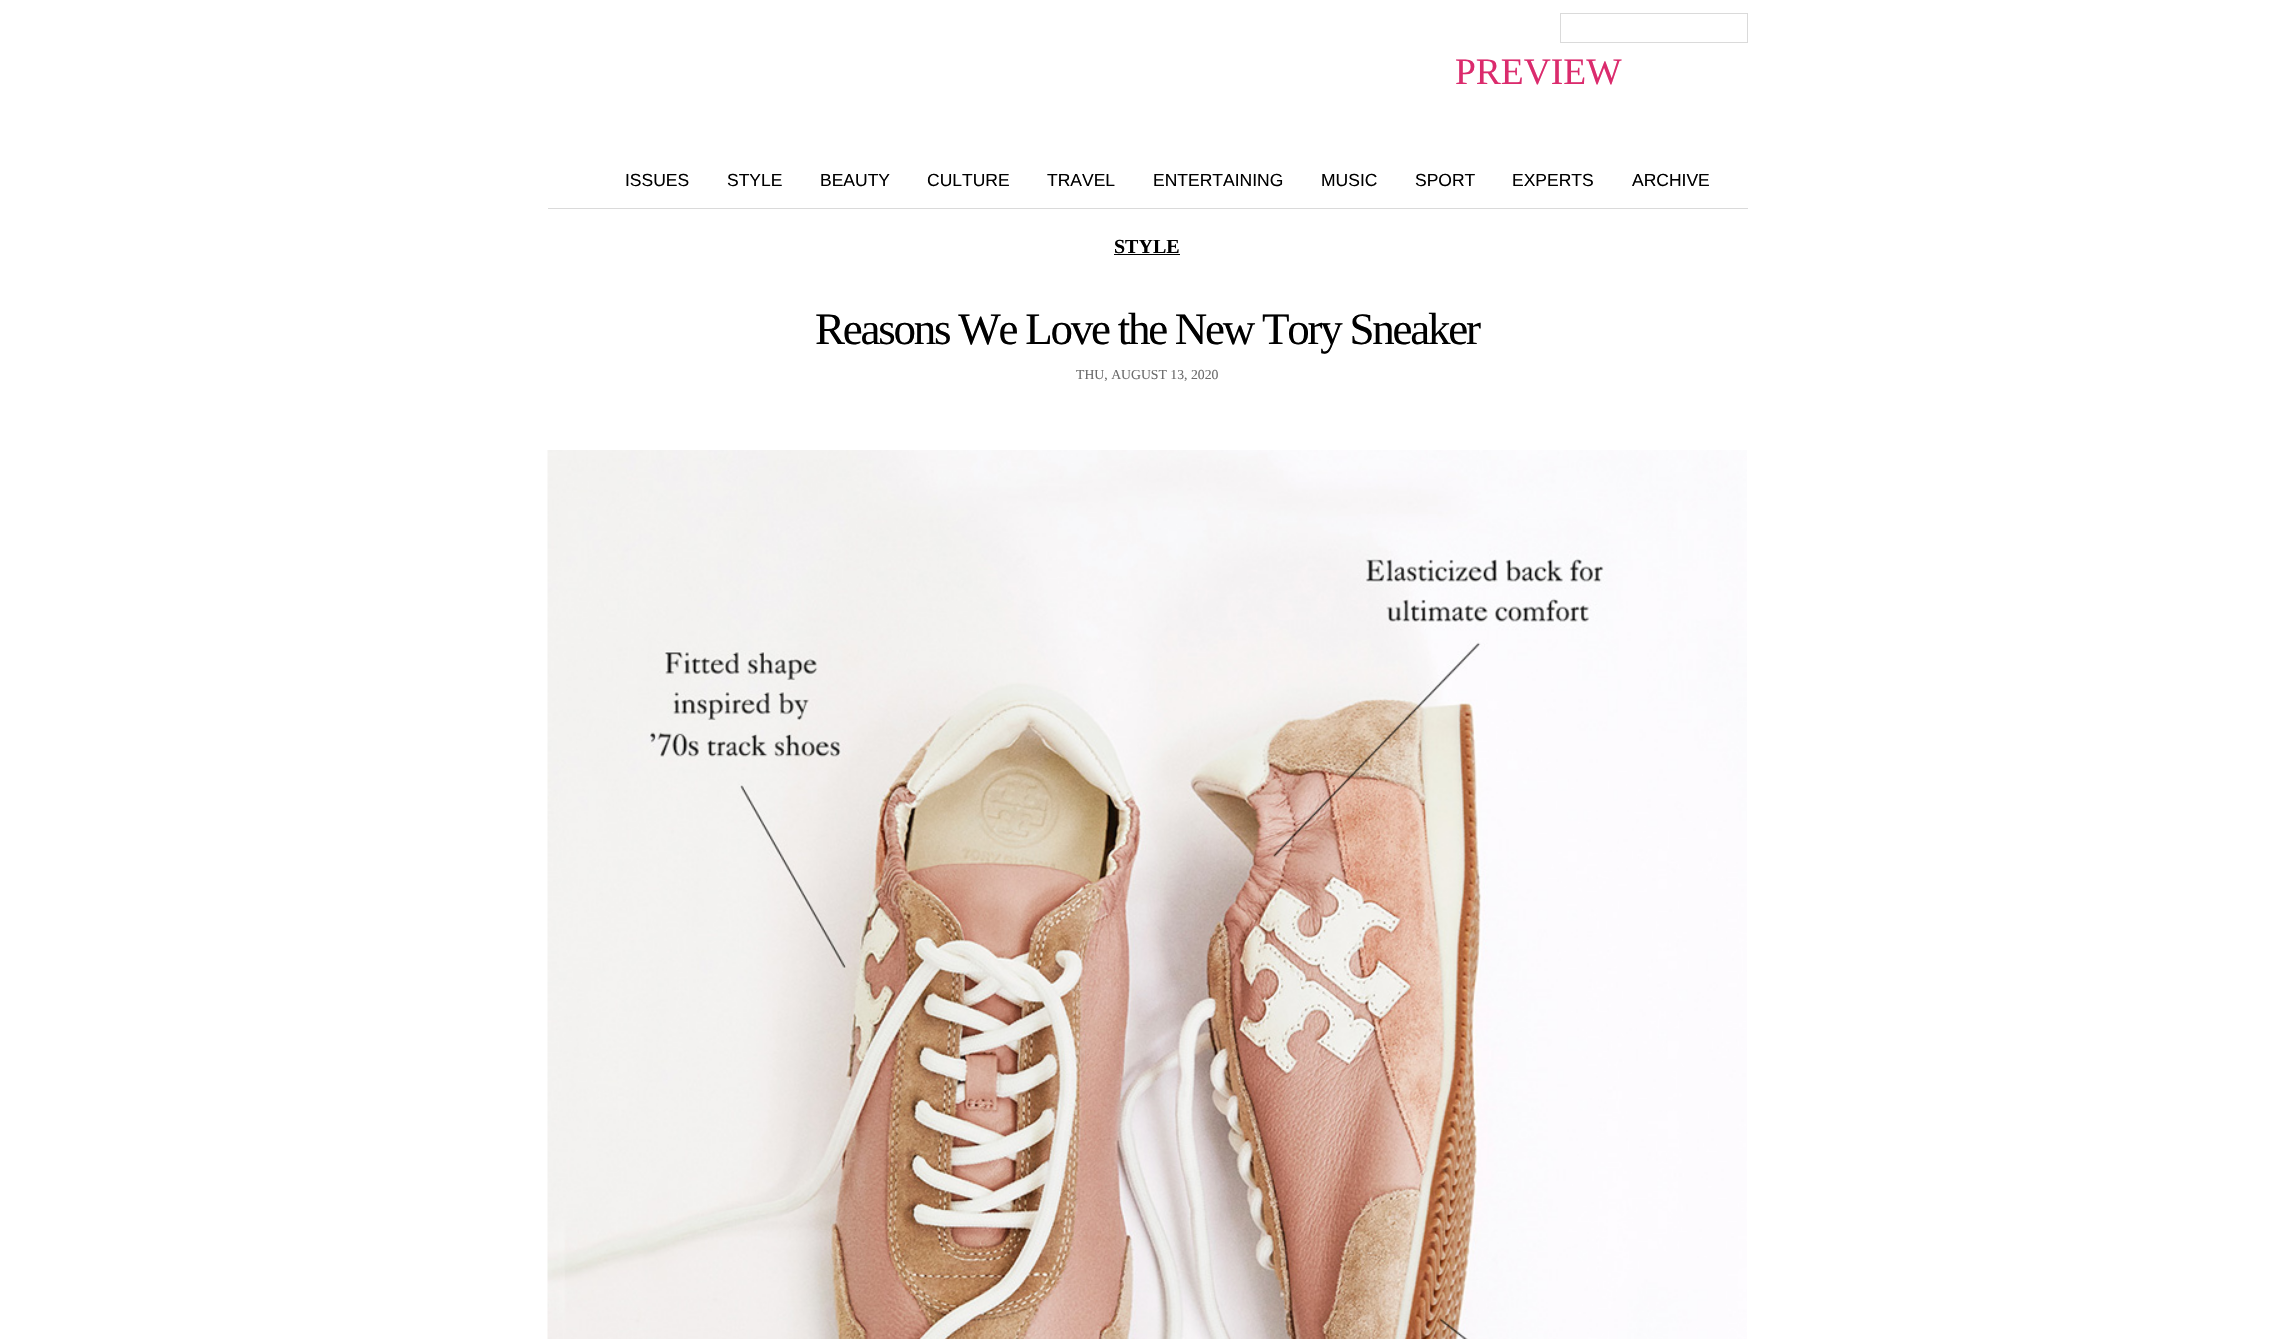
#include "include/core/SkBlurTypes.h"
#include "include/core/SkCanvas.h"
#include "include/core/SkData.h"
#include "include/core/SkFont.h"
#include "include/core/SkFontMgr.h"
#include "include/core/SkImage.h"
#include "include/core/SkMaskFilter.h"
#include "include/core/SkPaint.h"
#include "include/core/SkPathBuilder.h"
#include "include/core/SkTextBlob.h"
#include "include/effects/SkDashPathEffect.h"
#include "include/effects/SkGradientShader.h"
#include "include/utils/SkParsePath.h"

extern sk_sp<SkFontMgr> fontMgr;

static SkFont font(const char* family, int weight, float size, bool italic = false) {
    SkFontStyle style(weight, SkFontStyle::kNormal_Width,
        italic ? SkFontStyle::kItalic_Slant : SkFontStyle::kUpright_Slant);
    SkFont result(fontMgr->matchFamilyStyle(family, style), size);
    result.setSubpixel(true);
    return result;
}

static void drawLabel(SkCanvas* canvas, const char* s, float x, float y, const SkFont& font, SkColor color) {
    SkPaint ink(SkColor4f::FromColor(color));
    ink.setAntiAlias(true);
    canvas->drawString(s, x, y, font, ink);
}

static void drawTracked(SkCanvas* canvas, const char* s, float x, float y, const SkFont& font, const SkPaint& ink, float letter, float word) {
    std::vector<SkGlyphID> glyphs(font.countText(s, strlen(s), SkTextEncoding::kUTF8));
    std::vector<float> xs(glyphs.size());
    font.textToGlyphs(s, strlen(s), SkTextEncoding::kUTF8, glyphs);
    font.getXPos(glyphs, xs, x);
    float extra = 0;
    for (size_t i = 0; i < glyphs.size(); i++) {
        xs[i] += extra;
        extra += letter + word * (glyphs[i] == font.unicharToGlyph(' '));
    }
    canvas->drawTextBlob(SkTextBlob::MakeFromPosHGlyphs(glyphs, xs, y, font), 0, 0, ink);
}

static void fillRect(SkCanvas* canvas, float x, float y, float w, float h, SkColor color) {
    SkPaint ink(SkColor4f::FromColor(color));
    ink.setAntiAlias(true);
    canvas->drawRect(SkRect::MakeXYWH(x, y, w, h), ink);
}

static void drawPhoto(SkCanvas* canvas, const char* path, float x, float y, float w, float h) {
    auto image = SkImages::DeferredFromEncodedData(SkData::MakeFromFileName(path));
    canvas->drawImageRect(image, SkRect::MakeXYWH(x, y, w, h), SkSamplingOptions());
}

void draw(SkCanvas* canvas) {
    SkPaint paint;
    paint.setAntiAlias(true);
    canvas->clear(0xFFFFFFFF);
    paint.setStroke(true);
    paint.setStrokeWidth(1);
    paint.setColor(0xFFDADADA);
    canvas->drawRect(SkRect::MakeXYWH(1560.5f, 13.5f, 187, 29), paint);
    SkFont font1 = font("Liberation Serif", 400, 37.5f);
    drawLabel(canvas, "PREVIEW", 1455, 84, font1, 0xFFDB2B6D);
    fillRect(canvas, 548, 208, 1200, 1, 0xFFDADADA);
    SkFont font2 = font("Liberation Sans", 400, 17.5f);
    drawLabel(canvas, "ISSUES", 625, 186, font2, 0xFF000000);
    drawLabel(canvas, "STYLE", 727, 186, font2, 0xFF000000);
    drawLabel(canvas, "BEAUTY", 820, 186, font2, 0xFF000000);
    drawLabel(canvas, "CULTURE", 927, 186, font2, 0xFF000000);
    drawLabel(canvas, "TRAVEL", 1047, 186, font2, 0xFF000000);
    drawLabel(canvas, "ENTERTAINING", 1153, 186, font2, 0xFF000000);
    drawLabel(canvas, "MUSIC", 1321, 186, font2, 0xFF000000);
    drawLabel(canvas, "SPORT", 1415, 186, font2, 0xFF000000);
    drawLabel(canvas, "EXPERTS", 1512, 186, font2, 0xFF000000);
    drawLabel(canvas, "ARCHIVE", 1632, 186, font2, 0xFF000000);
    SkFont font3 = font("Liberation Serif", 700, 20);
    drawLabel(canvas, "STYLE", 1114, 253, font3, 0xFF000000);
    fillRect(canvas, 1114, 254, 66, 1, 0xFF000000);
    SkFont font4 = font("Liberation Serif", 400, 45);
    paint.setStroke(false);
    paint.setColor(0xFF000000);
    drawTracked(canvas, "Reasons We Love the New Tory Sneaker", 815, 344, font4, paint, -2.25f, 0);
    SkFont font5 = font("Liberation Serif", 400, 13.75f);
    drawLabel(canvas, "THU, AUGUST 13, 2020", 1076, 379, font5, 0xFF6B6B6B);
    drawPhoto(canvas, "assets/img1.png", 547, 450, 1200, 889);
}
